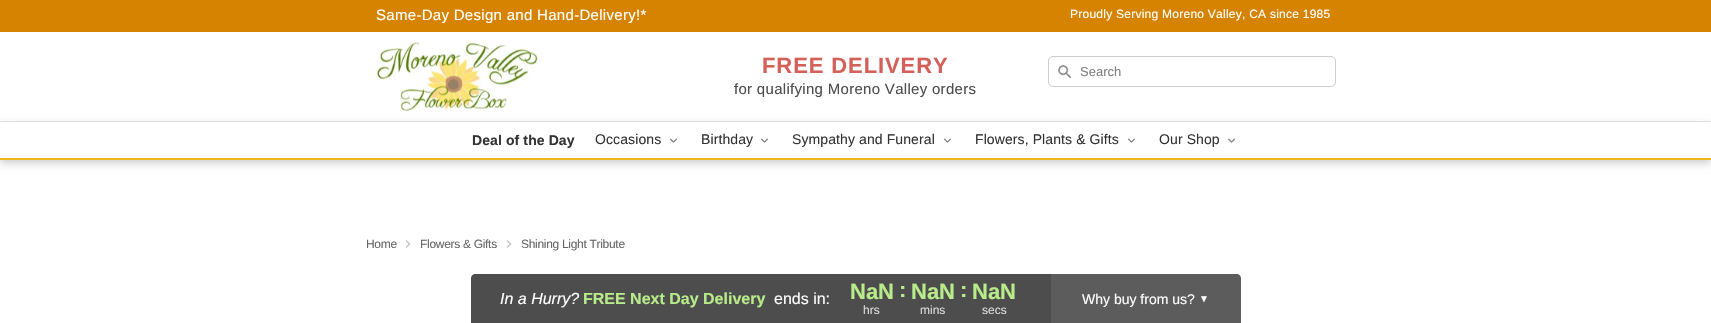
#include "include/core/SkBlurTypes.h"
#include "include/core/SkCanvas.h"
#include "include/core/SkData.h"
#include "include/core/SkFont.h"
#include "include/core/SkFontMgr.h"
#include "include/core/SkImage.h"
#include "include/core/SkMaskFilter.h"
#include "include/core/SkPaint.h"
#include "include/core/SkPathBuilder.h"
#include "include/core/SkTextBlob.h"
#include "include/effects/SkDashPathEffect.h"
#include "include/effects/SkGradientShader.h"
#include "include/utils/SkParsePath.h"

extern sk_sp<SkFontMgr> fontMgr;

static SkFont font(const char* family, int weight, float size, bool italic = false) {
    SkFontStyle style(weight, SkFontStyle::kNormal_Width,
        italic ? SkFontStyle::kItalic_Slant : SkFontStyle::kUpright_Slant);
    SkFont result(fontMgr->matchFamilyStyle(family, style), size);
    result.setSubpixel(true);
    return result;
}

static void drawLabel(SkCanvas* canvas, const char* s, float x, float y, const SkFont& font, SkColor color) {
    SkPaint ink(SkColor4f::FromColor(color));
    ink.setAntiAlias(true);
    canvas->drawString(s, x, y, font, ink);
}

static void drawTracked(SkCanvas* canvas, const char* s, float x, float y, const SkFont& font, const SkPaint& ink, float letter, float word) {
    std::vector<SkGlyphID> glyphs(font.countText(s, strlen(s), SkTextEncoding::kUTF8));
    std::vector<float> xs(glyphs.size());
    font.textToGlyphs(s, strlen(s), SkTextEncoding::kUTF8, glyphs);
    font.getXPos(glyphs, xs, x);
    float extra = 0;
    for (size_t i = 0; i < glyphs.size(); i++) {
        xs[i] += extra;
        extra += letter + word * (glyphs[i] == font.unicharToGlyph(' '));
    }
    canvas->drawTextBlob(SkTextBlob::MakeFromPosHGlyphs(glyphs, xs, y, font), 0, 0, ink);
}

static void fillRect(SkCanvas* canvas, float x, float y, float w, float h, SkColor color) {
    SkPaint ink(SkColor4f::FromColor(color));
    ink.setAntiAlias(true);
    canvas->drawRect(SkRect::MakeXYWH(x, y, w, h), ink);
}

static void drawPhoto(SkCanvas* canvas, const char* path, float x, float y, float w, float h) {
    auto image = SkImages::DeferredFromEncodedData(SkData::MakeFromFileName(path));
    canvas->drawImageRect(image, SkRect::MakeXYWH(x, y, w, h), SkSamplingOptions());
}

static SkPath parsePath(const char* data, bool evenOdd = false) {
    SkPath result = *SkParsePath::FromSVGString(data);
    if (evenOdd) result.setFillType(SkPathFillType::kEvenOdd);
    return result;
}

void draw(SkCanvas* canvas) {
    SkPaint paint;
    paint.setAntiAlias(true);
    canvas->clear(0xFFFFFFFF);
    fillRect(canvas, 0, 0, 1711, 32, 0xFFD58300);
    SkFont font1 = font("Liberation Sans", 400, 15);
    paint.setColor(0xFFFFFFFF);
    drawTracked(canvas, "Same-Day Design and Hand-Delivery!*", 376, 20, font1, paint, 0.3f, 0);
    SkFont font2 = font("Liberation Sans", 400, 12);
    drawTracked(canvas, "Proudly Serving Moreno Valley, CA since 1985", 1070, 18, font2, paint, 0.25f, 0);
    fillRect(canvas, 0, 121, 1711, 1, 0xFFEAEAEA);
    drawPhoto(canvas, "assets/img1.png", 376, 42, 162, 69);
    SkFont font3 = font("Liberation Sans", 700, 22);
    paint.setColor(0xFFD4605A);
    drawTracked(canvas, "FREE DELIVERY", 762, 73, font3, paint, 0.9f, 0);
    paint.setColor(0xFF4D4D4D);
    drawTracked(canvas, "for qualifying Moreno Valley orders", 734, 94, font1, paint, 0.3f, 0);
    drawPhoto(canvas, "assets/img2.png", 1058, 65, 14, 14);
    paint.setStroke(true);
    paint.setStrokeWidth(1);
    paint.setColor(0xFFCDCDCD);
    canvas->drawRoundRect(SkRect::MakeXYWH(1048.5f, 56.5f, 287, 30), 4.5f, 4.5f, paint);
    SkFont font4 = font("Liberation Sans", 400, 13);
    drawLabel(canvas, "Search", 1080, 76, font4, 0xFF818181);
    canvas->save();
    canvas->clipPath(parsePath("M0 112H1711V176H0ZM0 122H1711V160H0Z", true), true);
    paint.setStroke(false);
    paint.setColor(0x33000000);
    paint.setMaskFilter(SkMaskFilter::MakeBlur(kNormal_SkBlurStyle, 4));
    canvas->drawRect(SkRect::MakeXYWH(0, 125, 1711, 38), paint);
    paint.setMaskFilter(nullptr);
    canvas->restore();
    fillRect(canvas, 0, 158, 1711, 2, 0xFFEBB520);
    SkFont font5 = font("Liberation Sans", 700, 14);
    paint.setColor(0xFF333333);
    drawTracked(canvas, "Deal of the Day", 472, 145, font5, paint, 0.1f, 0);
    SkFont font6 = font("Liberation Sans", 400, 14);
    drawTracked(canvas, "Occasions", 595, 144, font6, paint, 0.1f, 0);
    drawPhoto(canvas, "assets/img3.png", 670, 138, 7, 5);
    drawTracked(canvas, "Birthday", 701, 144, font6, paint, 0.1f, 0);
    drawPhoto(canvas, "assets/img3.png", 761, 138, 7, 5);
    drawTracked(canvas, "Sympathy and Funeral", 792, 144, font6, paint, 0.1f, 0);
    drawPhoto(canvas, "assets/img3.png", 944, 138, 7, 5);
    drawTracked(canvas, "Flowers, Plants & Gifts", 975, 144, font6, paint, 0.1f, 0);
    drawPhoto(canvas, "assets/img3.png", 1128, 138, 7, 5);
    drawTracked(canvas, "Our Shop", 1159, 144, font6, paint, 0.1f, 0);
    drawPhoto(canvas, "assets/img3.png", 1228, 138, 7, 5);
    paint.setColor(0xFF666666);
    drawTracked(canvas, "Home", 366, 248, font2, paint, -0.3f, 0);
    drawPhoto(canvas, "assets/img4.png", 405, 240, 6, 8);
    drawTracked(canvas, "Flowers & Gifts", 420, 248, font2, paint, -0.3f, 0);
    drawPhoto(canvas, "assets/img4.png", 506, 240, 6, 8);
    drawTracked(canvas, "Shining Light Tribute", 521, 248, font2, paint, -0.3f, 0);
    paint.setColor(0xFF4D4D4D);
    canvas->drawPath(parsePath("M475 274H1051V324H471V278C471 276 473 274 475 274Z"), paint);
    SkFont font7 = font("Liberation Sans", 400, 16, true);
    drawLabel(canvas, "In a Hurry?", 500, 304, font7, 0xFFFFFFFF);
    SkFont font8 = font("Liberation Sans", 700, 16);
    drawLabel(canvas, "FREE Next Day Delivery", 583, 304, font8, 0xFFB8EB89);
    SkFont font9 = font("Liberation Sans", 400, 16);
    drawLabel(canvas, "ends in:", 774, 304, font9, 0xFFFFFFFF);
    drawLabel(canvas, "NaN", 850, 299, font3, 0xFFB8EB89);
    drawLabel(canvas, "hrs", 863, 314, font2, 0xFFDBDBDB);
    drawLabel(canvas, ":", 899, 297, font3, 0xFFB8EB89);
    drawLabel(canvas, "NaN", 911, 299, font3, 0xFFB8EB89);
    drawLabel(canvas, "mins", 920, 314, font2, 0xFFDBDBDB);
    drawLabel(canvas, ":", 960, 297, font3, 0xFFB8EB89);
    drawLabel(canvas, "NaN", 972, 299, font3, 0xFFB8EB89);
    drawLabel(canvas, "secs", 982, 314, font2, 0xFFDBDBDB);
    paint.setColor(0xFF5C5C5C);
    canvas->drawPath(parsePath("M1051 274H1237C1239 274 1241 276 1241 278V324H1051Z"), paint);
    drawLabel(canvas, "Why buy from us?", 1082, 304, font6, 0xFFFFFFFF);
    SkFont font10 = font("Liberation Sans", 400, 10);
    drawLabel(canvas, "▼", 1199, 302, font10, 0xFFFFFFFF);
}
